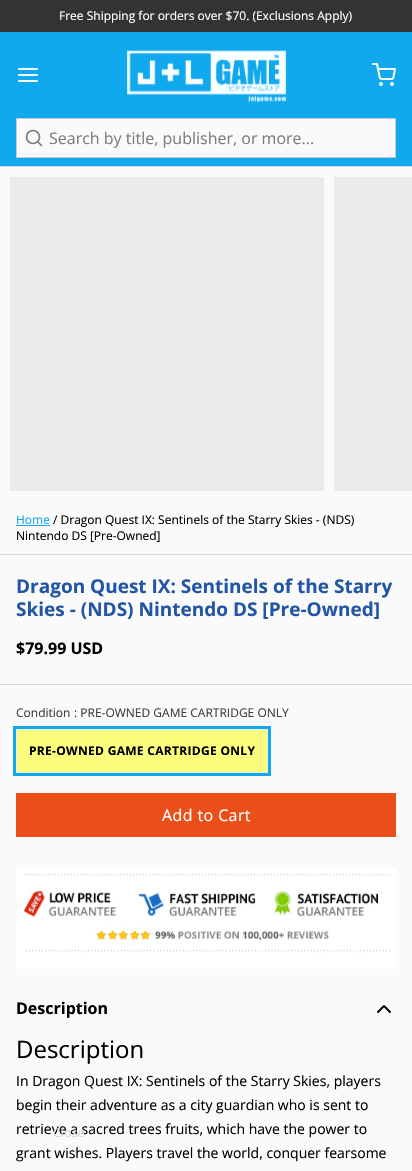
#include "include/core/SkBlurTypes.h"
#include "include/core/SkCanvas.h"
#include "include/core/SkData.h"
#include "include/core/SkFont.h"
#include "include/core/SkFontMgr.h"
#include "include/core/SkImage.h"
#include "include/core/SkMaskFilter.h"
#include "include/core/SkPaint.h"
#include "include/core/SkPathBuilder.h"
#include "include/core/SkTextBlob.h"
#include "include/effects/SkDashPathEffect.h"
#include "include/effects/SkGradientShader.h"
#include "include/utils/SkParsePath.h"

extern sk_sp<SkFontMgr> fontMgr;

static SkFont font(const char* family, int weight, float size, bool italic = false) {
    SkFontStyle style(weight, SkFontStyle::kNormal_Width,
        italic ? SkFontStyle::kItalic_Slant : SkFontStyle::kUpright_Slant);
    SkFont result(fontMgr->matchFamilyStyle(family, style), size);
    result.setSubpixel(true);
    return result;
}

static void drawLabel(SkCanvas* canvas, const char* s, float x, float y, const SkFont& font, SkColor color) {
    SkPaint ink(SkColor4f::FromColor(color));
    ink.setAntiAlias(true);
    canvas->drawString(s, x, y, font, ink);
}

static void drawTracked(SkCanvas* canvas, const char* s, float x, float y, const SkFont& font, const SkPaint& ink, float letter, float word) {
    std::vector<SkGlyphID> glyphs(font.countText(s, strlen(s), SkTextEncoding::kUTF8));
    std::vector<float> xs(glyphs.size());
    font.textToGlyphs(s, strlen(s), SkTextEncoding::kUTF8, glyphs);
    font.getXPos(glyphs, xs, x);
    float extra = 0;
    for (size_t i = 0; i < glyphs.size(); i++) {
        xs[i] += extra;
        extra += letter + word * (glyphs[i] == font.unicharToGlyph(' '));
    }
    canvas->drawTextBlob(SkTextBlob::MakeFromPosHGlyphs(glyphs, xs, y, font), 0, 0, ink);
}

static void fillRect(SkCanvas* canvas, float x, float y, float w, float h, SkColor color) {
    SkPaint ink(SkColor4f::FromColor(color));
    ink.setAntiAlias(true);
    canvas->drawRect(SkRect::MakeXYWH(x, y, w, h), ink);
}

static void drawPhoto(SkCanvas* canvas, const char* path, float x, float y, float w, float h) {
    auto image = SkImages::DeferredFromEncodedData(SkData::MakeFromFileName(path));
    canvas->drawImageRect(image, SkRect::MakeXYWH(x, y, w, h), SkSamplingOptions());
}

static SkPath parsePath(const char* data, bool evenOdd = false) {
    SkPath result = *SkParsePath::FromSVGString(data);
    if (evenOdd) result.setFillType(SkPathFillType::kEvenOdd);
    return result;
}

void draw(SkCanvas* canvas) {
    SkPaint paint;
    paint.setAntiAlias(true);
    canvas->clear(0xFFFAFAFA);
    fillRect(canvas, 0, 0, 412, 32, 0xFF333333);
    SkFont font1 = font("Open Sans", 400, 12);
    drawLabel(canvas, "Free Shipping for orders over $70. (Exclusions Apply)", 59, 20, font1, 0xFFFFFFFF);
    fillRect(canvas, 0, 32, 412, 134, 0xFF10A9ED);
    fillRect(canvas, 0, 166, 412, 1, 0xFFD7D7D7);
    paint.setStroke(true);
    paint.setStrokeWidth(2);
    paint.setStrokeCap(SkPaint::kRound_Cap);
    paint.setStrokeJoin(SkPaint::kRound_Join);
    paint.setColor(0xFFFAFAFA);
    canvas->drawPath(parsePath("M19 75H37M19 69H37M19 81H37"), paint);
    drawPhoto(canvas, "assets/img1.png", 127, 50, 159, 53);
    drawPhoto(canvas, "assets/img2.png", 372, 63, 24, 23);
    paint.setStroke(false);
    canvas->drawRect(SkRect::MakeXYWH(16.5f, 118.5f, 379, 39), paint);
    paint.setStroke(true);
    paint.setStrokeWidth(1);
    paint.setStrokeCap(SkPaint::kButt_Cap);
    paint.setStrokeJoin(SkPaint::kMiter_Join);
    paint.setColor(0xFFC8C8C8);
    canvas->drawRect(SkRect::MakeXYWH(16.5f, 118.5f, 379, 39), paint);
    paint.setStrokeWidth(1.7f);
    paint.setColor(0xFF7D7D7D);
    canvas->drawCircle(33, 137, 6.5f, paint);
    paint.setStrokeCap(SkPaint::kRound_Cap);
    paint.setStrokeJoin(SkPaint::kRound_Join);
    canvas->drawPath(parsePath("M41.5 145.5L38 142"), paint);
    SkFont font2 = font("Open Sans", 400, 16);
    drawLabel(canvas, "Search by title, publisher, or more...", 49, 144, font2, 0xFF7D7D7D);
    fillRect(canvas, 10, 177, 314, 314, 0xFFEBEBEB);
    fillRect(canvas, 334, 177, 78, 314, 0xFFEBEBEB);
    fillRect(canvas, 0, 554, 412, 1, 0xFFD7D7D7);
    drawLabel(canvas, "Home", 16, 524, font1, 0xFF10A9ED);
    fillRect(canvas, 16, 525, 34, 1, 0xFF10A9ED);
    drawLabel(canvas, "/ Dragon Quest IX: Sentinels of the Starry Skies - (NDS)", 53, 524, font1, 0xFF000000);
    drawLabel(canvas, "Nintendo DS [Pre-Owned]", 16, 540, font1, 0xFF000000);
    SkFont font3 = font("Open Sans", 700, 19);
    drawLabel(canvas, "Dragon Quest IX: Sentinels of the Starry", 16, 593, font3, 0xFF2255A4);
    drawLabel(canvas, "Skies - (NDS) Nintendo DS [Pre-Owned]", 16, 616, font3, 0xFF2255A4);
    fillRect(canvas, 0, 684, 412, 1, 0xFFD7D7D7);
    SkFont font4 = font("Open Sans", 700, 16);
    drawLabel(canvas, "$79.99 USD", 16, 654, font4, 0xFF000000);
    drawLabel(canvas, "Condition", 16, 717, font1, 0xFF3F3F3F);
    drawLabel(canvas, ": PRE-OWNED GAME CARTRIDGE ONLY", 74, 717, font1, 0xFF3F3F3F);
    paint.setStrokeWidth(3);
    paint.setStrokeCap(SkPaint::kButt_Cap);
    paint.setStrokeJoin(SkPaint::kMiter_Join);
    paint.setColor(0xFF10A9ED);
    canvas->drawRect(SkRect::MakeXYWH(14.5f, 727.5f, 255, 47), paint);
    paint.setStroke(false);
    paint.setColor(0xFFFDFD7D);
    canvas->drawRect(SkRect::MakeXYWH(16.5f, 729.5f, 251, 43), paint);
    paint.setStroke(true);
    paint.setStrokeWidth(1);
    paint.setColor(0xFFEBEBEB);
    canvas->drawRect(SkRect::MakeXYWH(16.5f, 729.5f, 251, 43), paint);
    SkFont font5 = font("Open Sans", 700, 12);
    paint.setStroke(false);
    paint.setColor(0xFF000000);
    drawTracked(canvas, "PRE-OWNED GAME CARTRIDGE ONLY", 29, 755, font5, paint, 0.3f, 0);
    fillRect(canvas, 16, 793, 380, 44, 0xFFEA4F1A);
    paint.setColor(0xFFFFFFFF);
    drawTracked(canvas, "Add to Cart", 162, 821, font2, paint, 0.4f, 0);
    drawPhoto(canvas, "assets/img3.png", 16, 867, 380, 102);
    drawLabel(canvas, "Description", 16, 1014, font4, 0xFF000000);
    paint.setStroke(true);
    paint.setStrokeWidth(2);
    paint.setStrokeCap(SkPaint::kRound_Cap);
    paint.setStrokeJoin(SkPaint::kRound_Join);
    paint.setColor(0xFF000000);
    canvas->drawPath(parsePath("M390 1012L384 1006L378 1012"), paint);
    SkFont font6 = font("Open Sans", 400, 24);
    drawLabel(canvas, "Description", 16, 1058, font6, 0xFF000000);
    SkFont font7 = font("Open Sans", 400, 14);
    drawLabel(canvas, "In Dragon Quest IX: Sentinels of the Starry Skies, players", 16, 1086, font7, 0xFF000000);
    drawLabel(canvas, "begin their adventure as a city guardian who is sent to", 16, 1110, font7, 0xFF000000);
    drawLabel(canvas, "retrieve a sacred trees fruits, which have the power to", 16, 1134, font7, 0xFF000000);
    drawLabel(canvas, "grant wishes. Players travel the world, conquer fearsome", 16, 1158, font7, 0xFF000000);
    paint.setStroke(false);
    paint.setColor(0xFFD5D5D5);
    drawTracked(canvas, "Close", 53, 1137, font1, paint, 0.3f, 0);
}
